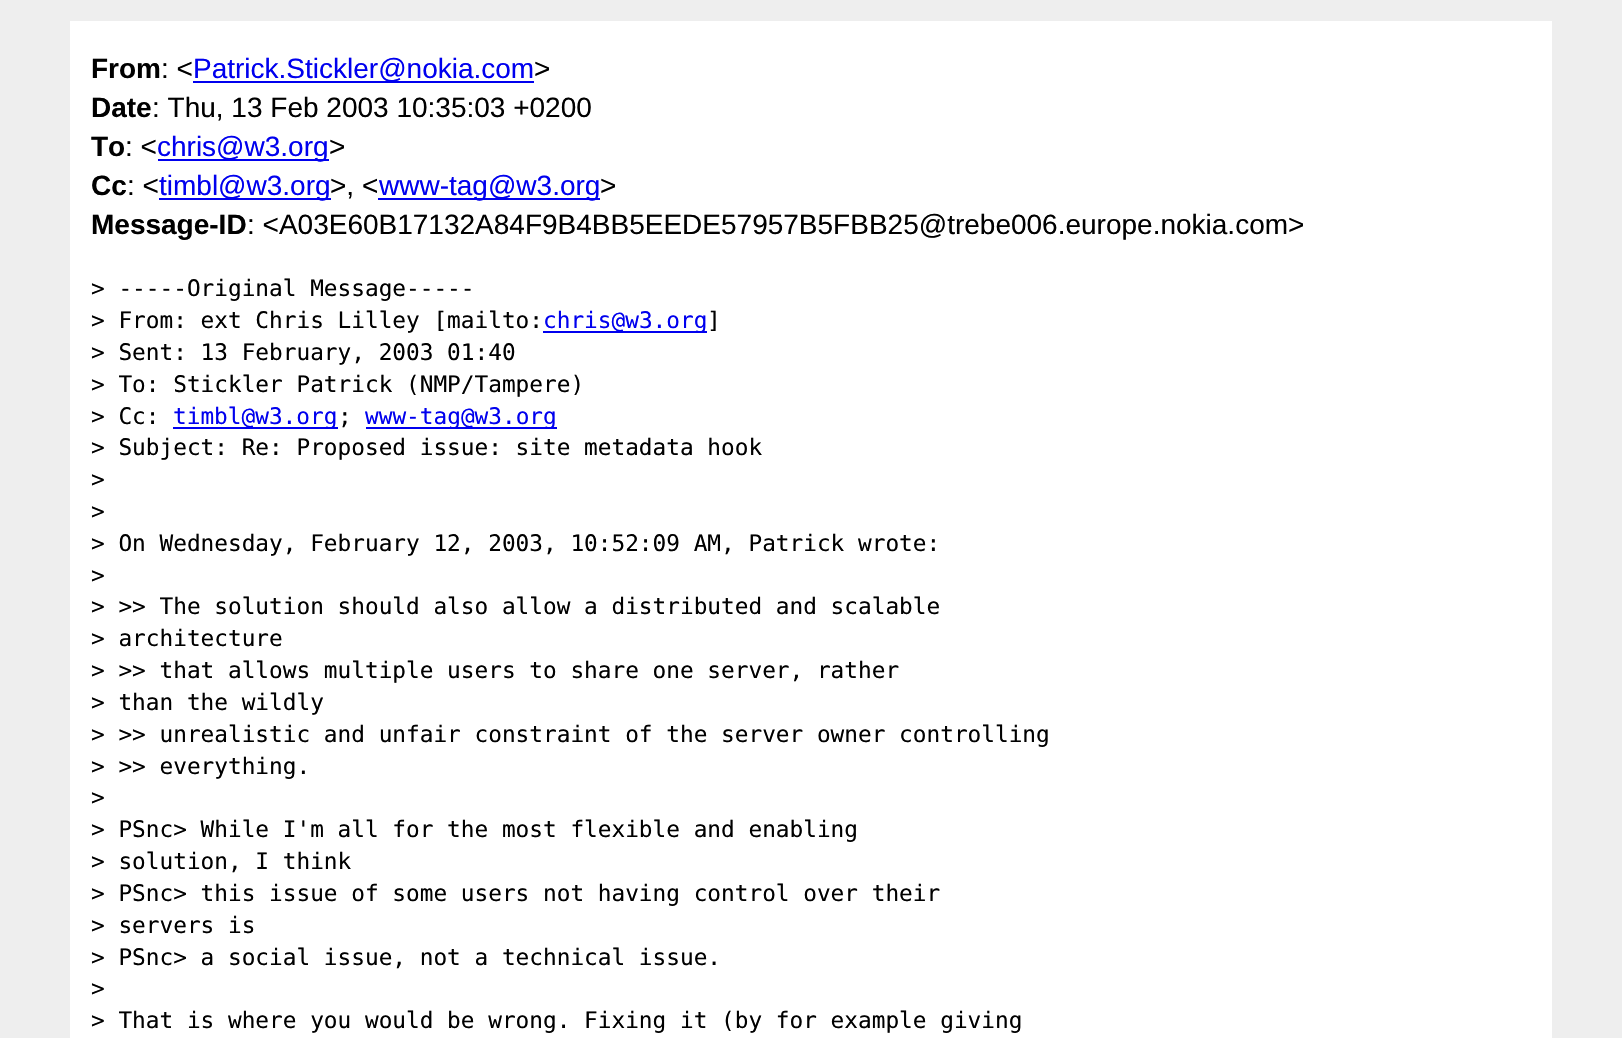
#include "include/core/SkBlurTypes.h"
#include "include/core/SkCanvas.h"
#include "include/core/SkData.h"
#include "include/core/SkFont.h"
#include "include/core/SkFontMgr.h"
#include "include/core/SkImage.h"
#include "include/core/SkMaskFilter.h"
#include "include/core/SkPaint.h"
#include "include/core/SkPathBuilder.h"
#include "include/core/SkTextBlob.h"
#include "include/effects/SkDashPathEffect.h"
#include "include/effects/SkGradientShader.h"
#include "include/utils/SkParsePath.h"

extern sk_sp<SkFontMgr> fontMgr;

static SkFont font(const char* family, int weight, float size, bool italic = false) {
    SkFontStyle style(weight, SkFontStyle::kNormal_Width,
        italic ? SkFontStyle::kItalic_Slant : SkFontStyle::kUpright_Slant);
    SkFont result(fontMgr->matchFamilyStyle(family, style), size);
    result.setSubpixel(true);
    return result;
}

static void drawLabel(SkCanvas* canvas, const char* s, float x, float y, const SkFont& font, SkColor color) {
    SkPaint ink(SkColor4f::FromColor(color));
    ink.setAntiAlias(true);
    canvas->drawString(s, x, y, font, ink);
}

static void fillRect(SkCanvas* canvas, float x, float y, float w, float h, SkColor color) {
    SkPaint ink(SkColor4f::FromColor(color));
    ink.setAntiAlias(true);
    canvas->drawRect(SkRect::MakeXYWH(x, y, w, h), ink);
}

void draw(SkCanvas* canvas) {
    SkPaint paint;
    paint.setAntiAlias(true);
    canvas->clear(0xFFEEEEEE);
    fillRect(canvas, 70, 21, 1482, 1017, 0xFFFFFFFF);
    SkFont font1 = font("Liberation Sans", 700, 28);
    drawLabel(canvas, "From", 91, 78, font1, 0xFF000000);
    SkFont font2 = font("Liberation Sans", 400, 28);
    drawLabel(canvas, ": <", 161, 78, font2, 0xFF000000);
    fillRect(canvas, 193, 81, 341, 2, 0xFF0000EE);
    drawLabel(canvas, "Patrick.Stickler@nokia.com", 193, 78, font2, 0xFF0000EE);
    drawLabel(canvas, ">", 534, 78, font2, 0xFF000000);
    drawLabel(canvas, "Date", 91, 117, font1, 0xFF000000);
    drawLabel(canvas, ": Thu, 13 Feb 2003 10:35:03 +0200", 152, 117, font2, 0xFF000000);
    drawLabel(canvas, "To", 91, 156, font1, 0xFF000000);
    drawLabel(canvas, ": <", 125, 156, font2, 0xFF000000);
    fillRect(canvas, 158, 159, 171, 2, 0xFF0000EE);
    drawLabel(canvas, "chris@w3.org", 157, 156, font2, 0xFF0000EE);
    drawLabel(canvas, ">", 329, 156, font2, 0xFF000000);
    drawLabel(canvas, "Cc", 91, 195, font1, 0xFF000000);
    drawLabel(canvas, ": <", 127, 195, font2, 0xFF000000);
    fillRect(canvas, 159, 198, 172, 2, 0xFF0000EE);
    drawLabel(canvas, "timbl@w3.org", 159, 195, font2, 0xFF0000EE);
    drawLabel(canvas, ">, <", 330, 195, font2, 0xFF000000);
    fillRect(canvas, 378, 198, 222, 2, 0xFF0000EE);
    drawLabel(canvas, "www-tag@w3.org", 379, 195, font2, 0xFF0000EE);
    drawLabel(canvas, ">", 600, 195, font2, 0xFF000000);
    drawLabel(canvas, "Message-ID", 91, 234, font1, 0xFF000000);
    drawLabel(canvas, ": <A03E60B17132A84F9B4BB5EEDE57957B5FBB25@trebe006.europe.nokia.com>", 247, 234, font2, 0xFF000000);
    SkFont font3 = font("DejaVu Sans Mono", 400, 22.75f);
    drawLabel(canvas, "> -----Original Message-----", 91, 296, font3, 0xFF000000);
    drawLabel(canvas, "> From: ext Chris Lilley [mailto:", 91, 328, font3, 0xFF000000);
    fillRect(canvas, 543, 331, 164, 2, 0xFF0000EE);
    drawLabel(canvas, "chris@w3.org", 543, 328, font3, 0xFF0000EE);
    drawLabel(canvas, "]", 707, 328, font3, 0xFF000000);
    drawLabel(canvas, "> Sent: 13 February, 2003 01:40", 91, 360, font3, 0xFF000000);
    drawLabel(canvas, "> To: Stickler Patrick (NMP/Tampere)", 91, 392, font3, 0xFF000000);
    drawLabel(canvas, "> Cc:", 91, 424, font3, 0xFF000000);
    fillRect(canvas, 173, 427, 165, 2, 0xFF0000EE);
    drawLabel(canvas, "timbl@w3.org", 173, 424, font3, 0xFF0000EE);
    drawLabel(canvas, ";", 338, 424, font3, 0xFF000000);
    fillRect(canvas, 366, 427, 191, 2, 0xFF0000EE);
    drawLabel(canvas, "www-tag@w3.org", 365, 424, font3, 0xFF0000EE);
    drawLabel(canvas, "> Subject: Re: Proposed issue: site metadata hook", 91, 455, font3, 0xFF000000);
    drawLabel(canvas, ">", 91, 487, font3, 0xFF000000);
    drawLabel(canvas, ">", 91, 519, font3, 0xFF000000);
    drawLabel(canvas, "> On Wednesday, February 12, 2003, 10:52:09 AM, Patrick wrote:", 91, 551, font3, 0xFF000000);
    drawLabel(canvas, ">", 91, 583, font3, 0xFF000000);
    drawLabel(canvas, "> >> The solution should also allow a distributed and scalable", 91, 614, font3, 0xFF000000);
    drawLabel(canvas, "> architecture", 91, 646, font3, 0xFF000000);
    drawLabel(canvas, "> >> that allows multiple users to share one server, rather", 91, 678, font3, 0xFF000000);
    drawLabel(canvas, "> than the wildly", 91, 710, font3, 0xFF000000);
    drawLabel(canvas, "> >> unrealistic and unfair constraint of the server owner controlling", 91, 742, font3, 0xFF000000);
    drawLabel(canvas, "> >> everything.", 91, 774, font3, 0xFF000000);
    drawLabel(canvas, ">", 91, 805, font3, 0xFF000000);
    drawLabel(canvas, "> PSnc> While I'm all for the most flexible and enabling", 91, 837, font3, 0xFF000000);
    drawLabel(canvas, "> solution, I think", 91, 869, font3, 0xFF000000);
    drawLabel(canvas, "> PSnc> this issue of some users not having control over their", 91, 901, font3, 0xFF000000);
    drawLabel(canvas, "> servers is", 91, 933, font3, 0xFF000000);
    drawLabel(canvas, "> PSnc> a social issue, not a technical issue.", 91, 965, font3, 0xFF000000);
    drawLabel(canvas, ">", 91, 996, font3, 0xFF000000);
    drawLabel(canvas, "> That is where you would be wrong. Fixing it (by for example giving", 91, 1028, font3, 0xFF000000);
}
